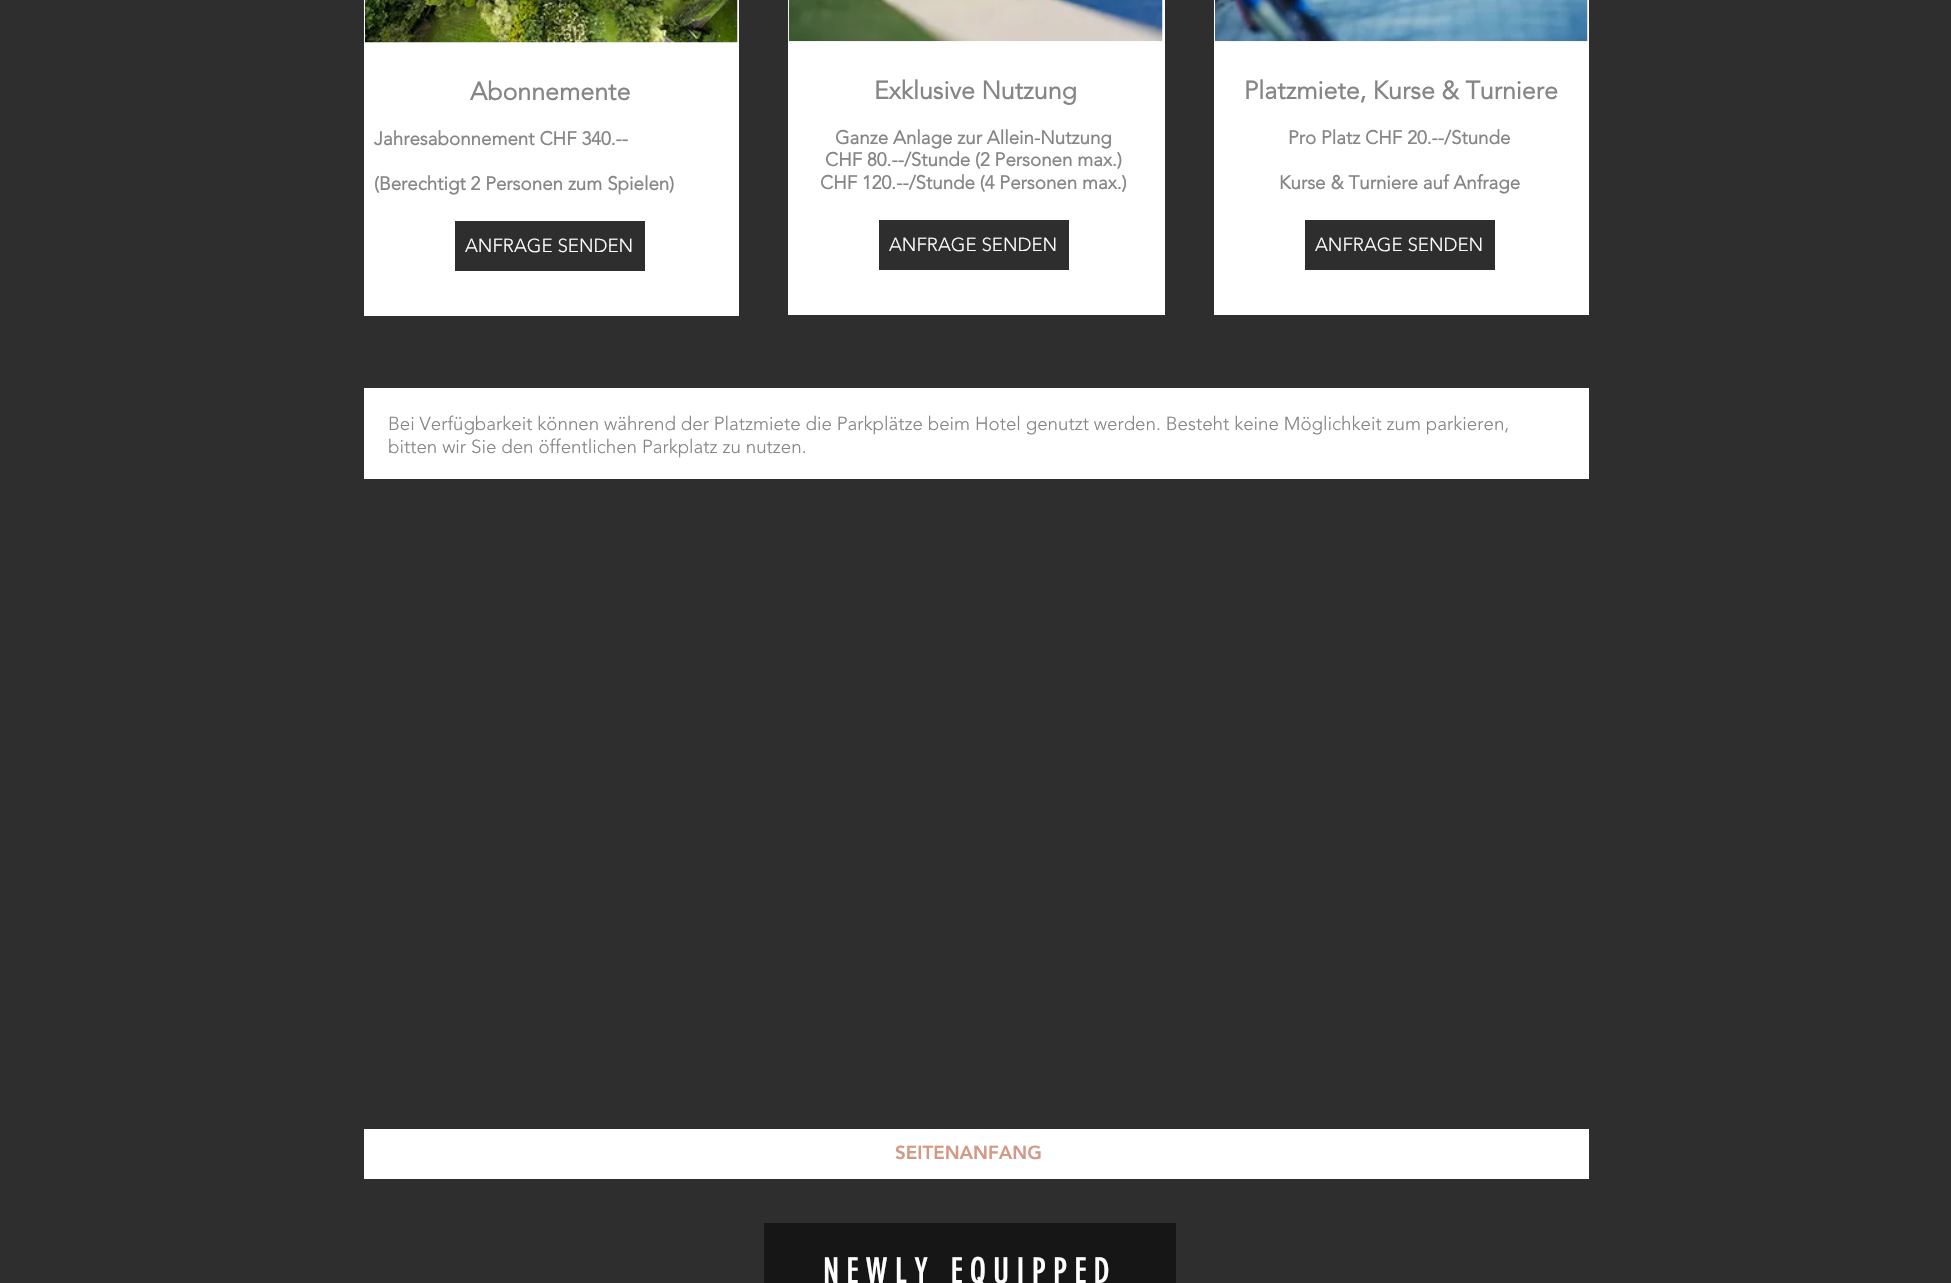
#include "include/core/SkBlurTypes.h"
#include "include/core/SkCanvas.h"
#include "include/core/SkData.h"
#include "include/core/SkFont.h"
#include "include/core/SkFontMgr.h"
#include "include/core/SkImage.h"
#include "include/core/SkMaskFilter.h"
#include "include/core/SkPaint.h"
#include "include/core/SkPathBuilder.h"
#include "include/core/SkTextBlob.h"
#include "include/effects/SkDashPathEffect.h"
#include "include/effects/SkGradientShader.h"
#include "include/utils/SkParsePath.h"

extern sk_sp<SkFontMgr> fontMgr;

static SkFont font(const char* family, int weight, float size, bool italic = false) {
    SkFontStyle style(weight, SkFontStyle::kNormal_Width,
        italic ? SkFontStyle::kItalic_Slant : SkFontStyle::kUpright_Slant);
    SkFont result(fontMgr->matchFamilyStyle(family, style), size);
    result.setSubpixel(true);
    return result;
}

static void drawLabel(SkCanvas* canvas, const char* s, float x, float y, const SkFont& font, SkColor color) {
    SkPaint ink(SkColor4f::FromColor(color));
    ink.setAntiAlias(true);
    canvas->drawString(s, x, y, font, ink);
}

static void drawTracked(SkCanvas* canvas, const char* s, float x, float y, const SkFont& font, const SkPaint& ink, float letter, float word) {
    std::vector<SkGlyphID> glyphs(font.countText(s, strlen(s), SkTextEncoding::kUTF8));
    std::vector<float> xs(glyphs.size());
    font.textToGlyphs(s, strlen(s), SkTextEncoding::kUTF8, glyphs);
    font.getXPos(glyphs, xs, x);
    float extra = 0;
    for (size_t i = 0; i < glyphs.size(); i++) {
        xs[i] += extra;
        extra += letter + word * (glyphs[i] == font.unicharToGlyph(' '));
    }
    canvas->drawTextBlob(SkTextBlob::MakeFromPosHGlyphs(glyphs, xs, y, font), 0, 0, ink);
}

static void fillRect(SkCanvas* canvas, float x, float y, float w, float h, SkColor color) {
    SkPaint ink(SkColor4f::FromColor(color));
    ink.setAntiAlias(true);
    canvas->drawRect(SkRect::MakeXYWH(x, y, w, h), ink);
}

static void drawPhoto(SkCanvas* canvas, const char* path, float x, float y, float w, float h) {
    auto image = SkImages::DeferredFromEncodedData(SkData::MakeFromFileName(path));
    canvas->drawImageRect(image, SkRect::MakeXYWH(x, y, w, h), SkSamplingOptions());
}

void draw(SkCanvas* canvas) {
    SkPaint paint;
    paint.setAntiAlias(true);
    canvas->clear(0xFF2F2E2E);
    fillRect(canvas, 364, 0, 375, 316, 0xFFFFFFFF);
    drawPhoto(canvas, "assets/img1.png", 365, 0, 373, 43);
    SkFont font1 = font("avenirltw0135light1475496", 700, 25);
    drawLabel(canvas, "Abonnemente", 470, 100, font1, 0xFF868686);
    SkFont font2 = font("avenirltw0135light1475496", 700, 18.75f);
    drawLabel(canvas, "Jahresabonnement CHF 340.--", 374, 145, font2, 0xFF868686);
    drawLabel(canvas, "(Berechtigt 2 Personen zum Spielen)", 374, 190, font2, 0xFF868686);
    fillRect(canvas, 455, 221, 190, 50, 0xFF2F2E2E);
    SkFont font3 = font("avenirltw0135light1475496", 300, 18.75f);
    drawLabel(canvas, "ANFRAGE SENDEN", 465, 252, font3, 0xFFFFFFFF);
    fillRect(canvas, 788, 0, 377, 315, 0xFFFFFFFF);
    drawPhoto(canvas, "assets/img2.png", 788, 0, 375, 42);
    drawLabel(canvas, "Exklusive Nutzung", 874, 99, font1, 0xFF868686);
    drawLabel(canvas, "Ganze Anlage zur Allein-Nutzung", 835, 144, font2, 0xFF868686);
    drawLabel(canvas, "CHF 80.--/Stunde (2 Personen max.)", 825, 166, font2, 0xFF868686);
    drawLabel(canvas, "CHF 120.--/Stunde (4 Personen max.)", 820, 189, font2, 0xFF868686);
    fillRect(canvas, 879, 220, 190, 50, 0xFF2F2E2E);
    drawLabel(canvas, "ANFRAGE SENDEN", 889, 251, font3, 0xFFFFFFFF);
    fillRect(canvas, 1214, 0, 375, 315, 0xFFFFFFFF);
    drawPhoto(canvas, "assets/img3.png", 1215, 0, 373, 42);
    drawLabel(canvas, "Platzmiete, Kurse & Turniere", 1244, 99, font1, 0xFF868686);
    drawLabel(canvas, "Pro Platz CHF 20.--/Stunde", 1288, 144, font2, 0xFF868686);
    drawLabel(canvas, "Kurse & Turniere auf Anfrage", 1279, 189, font2, 0xFF868686);
    fillRect(canvas, 1305, 220, 190, 50, 0xFF2F2E2E);
    drawLabel(canvas, "ANFRAGE SENDEN", 1315, 251, font3, 0xFFFFFFFF);
    fillRect(canvas, 364, 388, 1225, 91, 0xFFFFFFFF);
    drawLabel(canvas, "Bei Verfügbarkeit können während der Platzmiete die Parkplätze beim Hotel genutzt werden. Besteht keine Möglichkeit zum parkieren,", 388, 430, font3, 0xFF868686);
    drawLabel(canvas, "bitten wir Sie den öffentlichen Parkplatz zu nutzen.", 388, 453, font3, 0xFF868686);
    fillRect(canvas, 364, 1129, 1225, 50, 0xFFFFFFFF);
    SkFont font4 = font("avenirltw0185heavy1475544", 900, 18.75f);
    drawLabel(canvas, "SEITENANFANG", 895, 1159, font4, 0xFFD49985);
    fillRect(canvas, 764, 1223, 412, 60, 0xFF171616);
    SkFont font5 = font("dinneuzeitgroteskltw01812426", 400, 35);
    paint.setColor(0xFFFFFFFF);
    drawTracked(canvas, "NEWLY EQUIPPED", 823, 1283, font5, paint, 7, 0);
}
